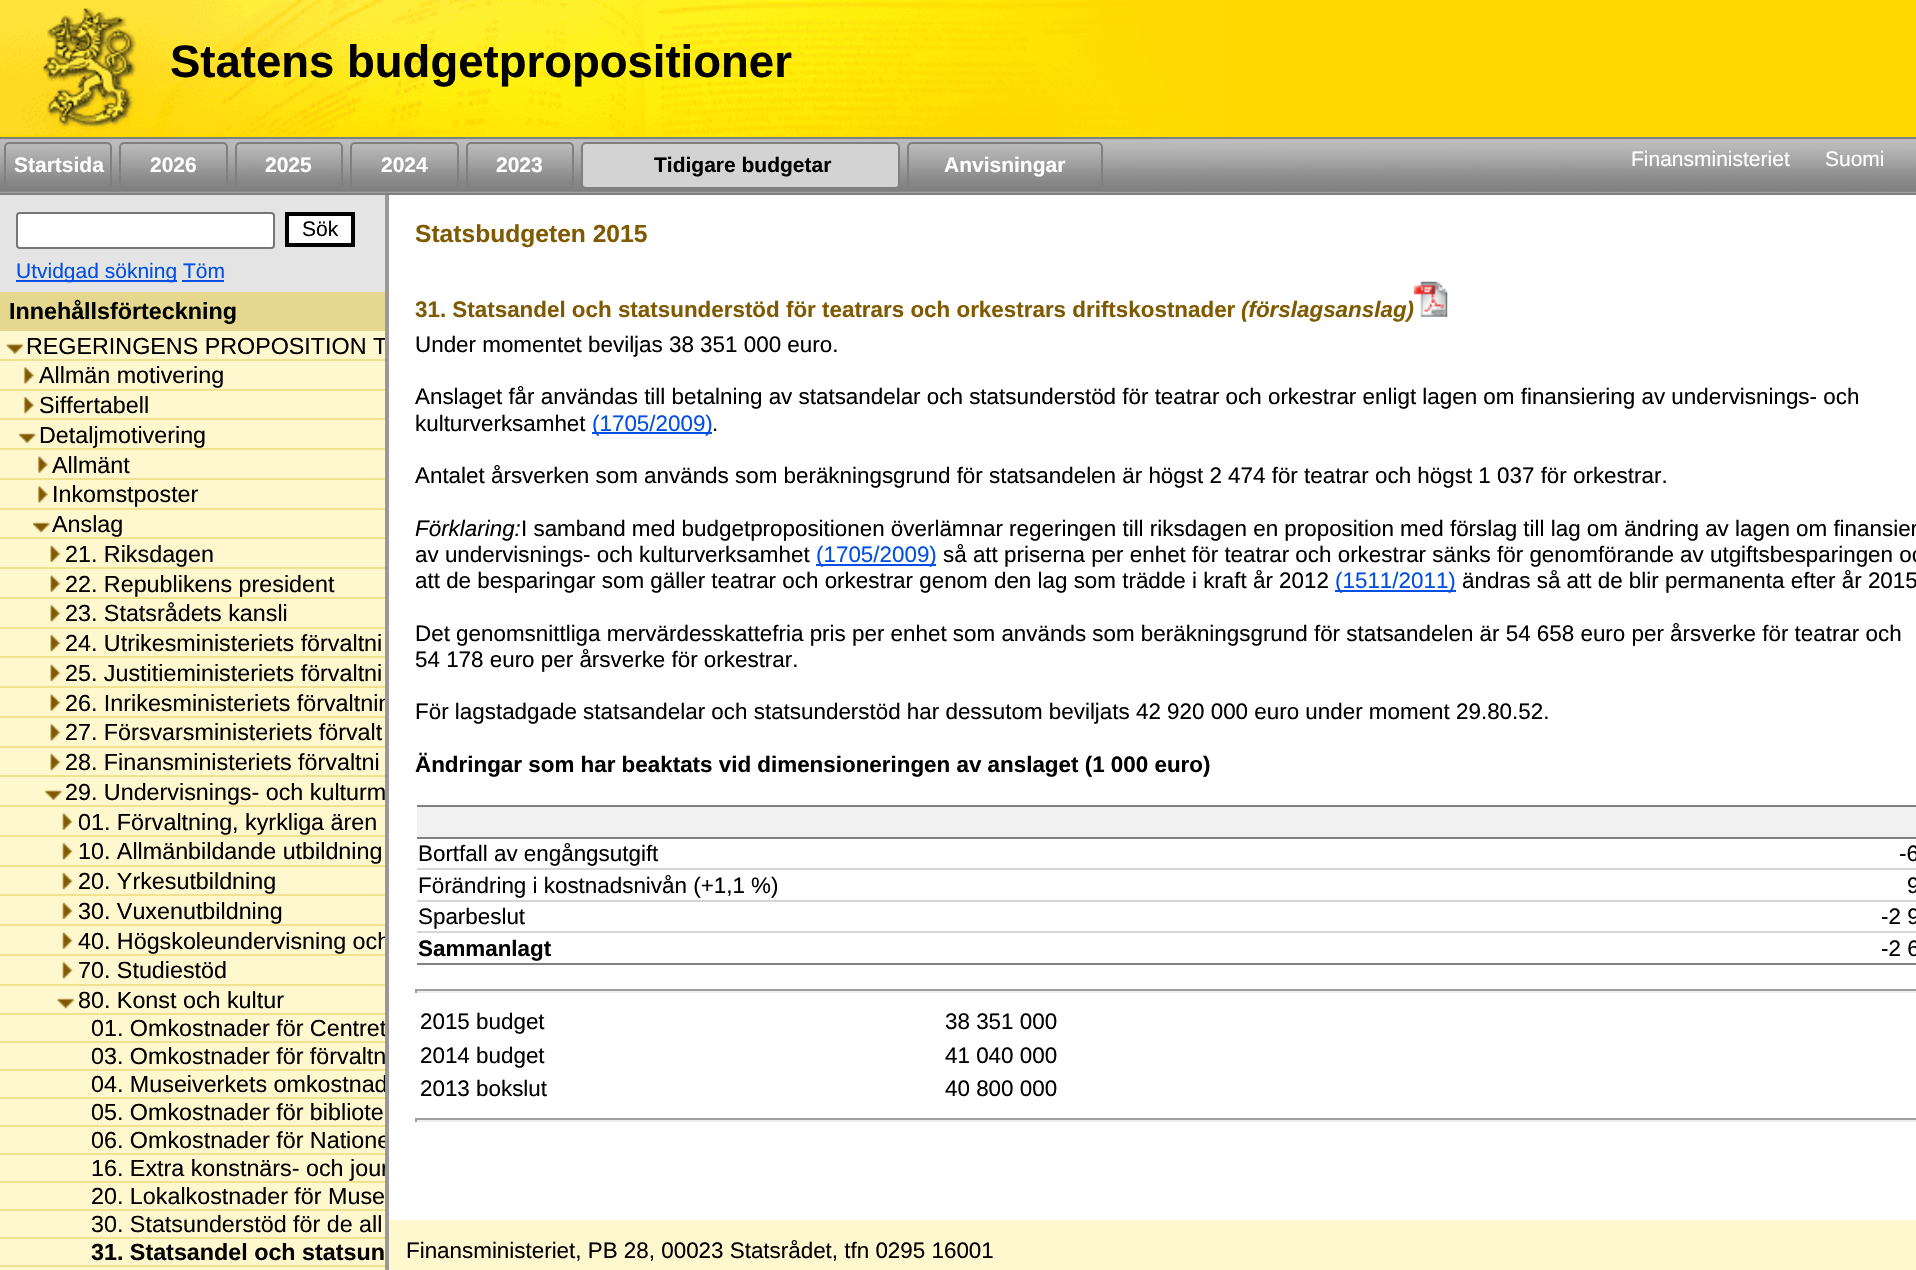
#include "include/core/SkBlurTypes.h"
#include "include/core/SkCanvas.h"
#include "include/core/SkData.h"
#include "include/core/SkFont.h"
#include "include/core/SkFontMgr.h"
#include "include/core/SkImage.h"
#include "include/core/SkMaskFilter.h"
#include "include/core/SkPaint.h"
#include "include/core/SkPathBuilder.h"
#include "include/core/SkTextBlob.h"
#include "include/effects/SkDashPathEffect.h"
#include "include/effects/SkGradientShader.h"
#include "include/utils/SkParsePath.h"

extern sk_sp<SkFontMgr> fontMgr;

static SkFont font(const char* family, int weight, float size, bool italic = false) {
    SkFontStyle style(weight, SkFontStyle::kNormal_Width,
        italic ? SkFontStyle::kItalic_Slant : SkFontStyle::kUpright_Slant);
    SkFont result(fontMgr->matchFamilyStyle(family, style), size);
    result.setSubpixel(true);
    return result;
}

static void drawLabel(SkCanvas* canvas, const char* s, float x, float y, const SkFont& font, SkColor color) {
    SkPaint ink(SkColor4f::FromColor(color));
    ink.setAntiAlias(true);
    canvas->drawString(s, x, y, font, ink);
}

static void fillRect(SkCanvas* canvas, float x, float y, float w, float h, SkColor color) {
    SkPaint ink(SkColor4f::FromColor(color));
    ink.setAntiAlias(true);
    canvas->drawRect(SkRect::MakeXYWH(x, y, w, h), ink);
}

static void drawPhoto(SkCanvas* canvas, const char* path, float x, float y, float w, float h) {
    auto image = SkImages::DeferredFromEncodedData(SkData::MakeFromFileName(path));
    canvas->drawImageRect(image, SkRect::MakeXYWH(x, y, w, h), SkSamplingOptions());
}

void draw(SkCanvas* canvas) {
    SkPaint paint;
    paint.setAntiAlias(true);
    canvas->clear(0xFFFFF8CE);
    drawPhoto(canvas, "assets/img1.png", 0, 0, 1225, 137);
    SkFont font1 = font("Liberation Sans", 700, 45.5f);
    drawLabel(canvas, "Statens budgetpropositioner", 170, 77, font1, 0xFF000000);
    fillRect(canvas, 1225, 0, 691, 137, 0xFFFFD800);
    drawPhoto(canvas, "assets/img2.png", 0, 139, 1916, 54);
    fillRect(canvas, 0, 137, 1916, 2, 0xFF808080);
    fillRect(canvas, 385, 193, 4, 1077, 0xFF999999);
    fillRect(canvas, 0, 193, 1916, 2, 0xFF808080);
    paint.setStroke(true);
    paint.setStrokeWidth(2);
    paint.setColor(0xFF808080);
    canvas->drawRoundRect(SkRect::MakeXYWH(5, 143, 106, 45), 4, 4, paint);
    SkFont font2 = font("Liberation Sans", 700, 21);
    drawLabel(canvas, "Startsida", 14, 172, font2, 0xFFFFFFFF);
    canvas->drawRoundRect(SkRect::MakeXYWH(120, 143, 107, 45), 4, 4, paint);
    drawLabel(canvas, "2026", 150, 172, font2, 0xFFFFFFFF);
    canvas->drawRoundRect(SkRect::MakeXYWH(236, 143, 106, 45), 4, 4, paint);
    drawLabel(canvas, "2025", 265, 172, font2, 0xFFFFFFFF);
    canvas->drawRoundRect(SkRect::MakeXYWH(351, 143, 107, 45), 4, 4, paint);
    drawLabel(canvas, "2024", 381, 172, font2, 0xFFFFFFFF);
    canvas->drawRoundRect(SkRect::MakeXYWH(467, 143, 106, 45), 4, 4, paint);
    drawLabel(canvas, "2023", 496, 172, font2, 0xFFFFFFFF);
    paint.setStroke(false);
    paint.setColor(0xFFD3D3D3);
    canvas->drawRoundRect(SkRect::MakeXYWH(582, 143, 317, 45), 4, 4, paint);
    paint.setStroke(true);
    paint.setColor(0xFF808080);
    canvas->drawRoundRect(SkRect::MakeXYWH(582, 143, 317, 45), 4, 4, paint);
    drawLabel(canvas, "Tidigare budgetar", 654, 172, font2, 0xFF000000);
    canvas->drawRoundRect(SkRect::MakeXYWH(908, 143, 194, 45), 4, 4, paint);
    drawLabel(canvas, "Anvisningar", 944, 172, font2, 0xFFFFFFFF);
    SkFont font3 = font("Liberation Sans", 400, 21);
    drawLabel(canvas, "Finansministeriet", 1631, 166, font3, 0xFFFFFFFF);
    drawLabel(canvas, "Suomi", 1825, 166, font3, 0xFFFFFFFF);
    fillRect(canvas, 0, 195, 385, 97, 0xFFE4E4E4);
    paint.setStroke(false);
    paint.setColor(0xFFFFFFFF);
    canvas->drawRoundRect(SkRect::MakeXYWH(17, 213, 257, 35), 3, 3, paint);
    paint.setStroke(true);
    paint.setColor(0xFF767676);
    canvas->drawRoundRect(SkRect::MakeXYWH(17, 213, 257, 35), 3, 3, paint);
    paint.setStroke(false);
    paint.setColor(0xFFFEFEFE);
    canvas->drawRect(SkRect::MakeXYWH(287, 214, 66, 31), paint);
    paint.setStroke(true);
    paint.setStrokeWidth(4);
    paint.setColor(0xFF000000);
    canvas->drawRect(SkRect::MakeXYWH(287, 214, 66, 31), paint);
    drawLabel(canvas, "Sök", 302, 236, font3, 0xFF000000);
    fillRect(canvas, 16, 280, 161, 2, 0xFF014FE5);
    drawLabel(canvas, "Utvidgad sökning Töm", 16, 278, font3, 0xFF014FE5);
    fillRect(canvas, 182, 280, 42, 2, 0xFF014FE5);
    fillRect(canvas, 0, 292, 385, 39, 0xFFE5D88E);
    SkFont font4 = font("Liberation Sans", 700, 23.3f);
    drawLabel(canvas, "Innehållsförteckning", 9, 319, font4, 0xFF000000);
    fillRect(canvas, 0, 359, 385, 2, 0xFFF0E28F);
    drawPhoto(canvas, "assets/img3.png", 6, 343, 18, 11);
    canvas->save();
    canvas->clipRect(SkRect::MakeXYWH(0, 292, 385, 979));
    SkFont font5 = font("Liberation Sans", 400, 23.3f);
    drawLabel(canvas, "REGERINGENS PROPOSITION T", 26, 354, font5, 0xFF000000);
    canvas->restore();
    fillRect(canvas, 0, 389, 385, 2, 0xFFF0E28F);
    drawPhoto(canvas, "assets/img4.png", 23, 366, 12, 18);
    drawLabel(canvas, "Allmän motivering", 39, 383, font5, 0xFF000000);
    fillRect(canvas, 0, 418, 385, 2, 0xFFF0E28F);
    drawPhoto(canvas, "assets/img5.png", 23, 396, 12, 18);
    drawLabel(canvas, "Siffertabell", 39, 413, font5, 0xFF000000);
    fillRect(canvas, 0, 448, 385, 2, 0xFFF0E28F);
    drawPhoto(canvas, "assets/img6.png", 19, 433, 17, 10);
    drawLabel(canvas, "Detaljmotivering", 39, 443, font5, 0xFF000000);
    fillRect(canvas, 0, 478, 385, 2, 0xFFF0E28F);
    drawPhoto(canvas, "assets/img7.png", 37, 455, 12, 18);
    drawLabel(canvas, "Allmänt", 52, 473, font5, 0xFF000000);
    fillRect(canvas, 0, 508, 385, 2, 0xFFF0E28F);
    drawPhoto(canvas, "assets/img4.png", 37, 485, 12, 18);
    drawLabel(canvas, "Inkomstposter", 52, 502, font5, 0xFF000000);
    fillRect(canvas, 0, 537, 385, 2, 0xFFF0E28F);
    drawPhoto(canvas, "assets/img8.png", 33, 522, 18, 11);
    drawLabel(canvas, "Anslag", 52, 532, font5, 0xFF000000);
    fillRect(canvas, 0, 567, 385, 2, 0xFFF0E28F);
    drawPhoto(canvas, "assets/img9.png", 50, 545, 11, 17);
    drawLabel(canvas, "21. Riksdagen", 65, 562, font5, 0xFF000000);
    fillRect(canvas, 0, 597, 385, 2, 0xFFF0E28F);
    drawPhoto(canvas, "assets/img10.png", 50, 574, 11, 18);
    drawLabel(canvas, "22. Republikens president", 65, 592, font5, 0xFF000000);
    fillRect(canvas, 0, 627, 385, 2, 0xFFF0E28F);
    drawPhoto(canvas, "assets/img11.png", 50, 604, 11, 18);
    drawLabel(canvas, "23. Statsrådets kansli", 65, 621, font5, 0xFF000000);
    fillRect(canvas, 0, 656, 385, 2, 0xFFF0E28F);
    drawPhoto(canvas, "assets/img12.png", 50, 634, 11, 18);
    drawLabel(canvas, "24. Utrikesministeriets förvaltni", 65, 651, font5, 0xFF000000);
    fillRect(canvas, 0, 686, 385, 2, 0xFFF0E28F);
    drawPhoto(canvas, "assets/img13.png", 50, 664, 11, 17);
    drawLabel(canvas, "25. Justitieministeriets förvaltni", 65, 681, font5, 0xFF000000);
    fillRect(canvas, 0, 716, 385, 2, 0xFFF0E28F);
    drawPhoto(canvas, "assets/img10.png", 50, 693, 11, 18);
    canvas->save();
    canvas->clipRect(SkRect::MakeXYWH(0, 292, 385, 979));
    drawLabel(canvas, "26. Inrikesministeriets förvaltnin", 65, 711, font5, 0xFF000000);
    canvas->restore();
    fillRect(canvas, 0, 746, 385, 2, 0xFFF0E28F);
    drawPhoto(canvas, "assets/img11.png", 50, 723, 11, 18);
    drawLabel(canvas, "27. Försvarsministeriets förvalt", 65, 740, font5, 0xFF000000);
    fillRect(canvas, 0, 775, 385, 2, 0xFFF0E28F);
    drawPhoto(canvas, "assets/img12.png", 50, 753, 11, 18);
    drawLabel(canvas, "28. Finansministeriets förvaltni", 65, 770, font5, 0xFF000000);
    fillRect(canvas, 0, 805, 385, 2, 0xFFF0E28F);
    drawPhoto(canvas, "assets/img14.png", 45, 790, 18, 10);
    drawLabel(canvas, "29. Undervisnings- och kulturm", 65, 800, font5, 0xFF000000);
    fillRect(canvas, 0, 835, 385, 2, 0xFFF0E28F);
    drawPhoto(canvas, "assets/img15.png", 62, 812, 11, 18);
    drawLabel(canvas, "01. Förvaltning, kyrkliga ären", 78, 830, font5, 0xFF000000);
    fillRect(canvas, 0, 865, 385, 2, 0xFFF0E28F);
    drawPhoto(canvas, "assets/img16.png", 62, 842, 11, 18);
    drawLabel(canvas, "10. Allmänbildande utbildning", 78, 859, font5, 0xFF000000);
    fillRect(canvas, 0, 894, 385, 2, 0xFFF0E28F);
    drawPhoto(canvas, "assets/img17.png", 62, 872, 11, 18);
    drawLabel(canvas, "20. Yrkesutbildning", 78, 889, font5, 0xFF000000);
    fillRect(canvas, 0, 924, 385, 2, 0xFFF0E28F);
    drawPhoto(canvas, "assets/img18.png", 62, 902, 11, 17);
    drawLabel(canvas, "30. Vuxenutbildning", 78, 919, font5, 0xFF000000);
    fillRect(canvas, 0, 954, 385, 2, 0xFFF0E28F);
    drawPhoto(canvas, "assets/img15.png", 62, 931, 11, 18);
    canvas->save();
    canvas->clipRect(SkRect::MakeXYWH(0, 292, 385, 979));
    drawLabel(canvas, "40. Högskoleundervisning och", 78, 949, font5, 0xFF000000);
    canvas->restore();
    fillRect(canvas, 0, 984, 385, 2, 0xFFF0E28F);
    drawPhoto(canvas, "assets/img16.png", 62, 961, 11, 18);
    drawLabel(canvas, "70. Studiestöd", 78, 978, font5, 0xFF000000);
    fillRect(canvas, 0, 1013, 385, 2, 0xFFF0E28F);
    drawPhoto(canvas, "assets/img19.png", 57, 998, 18, 11);
    drawLabel(canvas, "80. Konst och kultur", 78, 1008, font5, 0xFF000000);
    fillRect(canvas, 0, 1041, 385, 2, 0xFFF0E28F);
    canvas->save();
    canvas->clipRect(SkRect::MakeXYWH(0, 292, 385, 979));
    drawLabel(canvas, "01. Omkostnader för Centret", 91, 1036, font5, 0xFF000000);
    canvas->restore();
    fillRect(canvas, 0, 1069, 385, 2, 0xFFF0E28F);
    drawLabel(canvas, "03. Omkostnader för förvaltn", 91, 1064, font5, 0xFF000000);
    fillRect(canvas, 0, 1097, 385, 2, 0xFFF0E28F);
    canvas->save();
    canvas->clipRect(SkRect::MakeXYWH(0, 292, 385, 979));
    drawLabel(canvas, "04. Museiverkets omkostnad", 91, 1092, font5, 0xFF000000);
    canvas->restore();
    fillRect(canvas, 0, 1125, 385, 2, 0xFFF0E28F);
    drawLabel(canvas, "05. Omkostnader för bibliote", 91, 1120, font5, 0xFF000000);
    fillRect(canvas, 0, 1153, 385, 2, 0xFFF0E28F);
    canvas->save();
    canvas->clipRect(SkRect::MakeXYWH(0, 292, 385, 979));
    drawLabel(canvas, "06. Omkostnader för Natione", 91, 1148, font5, 0xFF000000);
    canvas->restore();
    fillRect(canvas, 0, 1181, 385, 2, 0xFFF0E28F);
    canvas->save();
    canvas->clipRect(SkRect::MakeXYWH(0, 292, 385, 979));
    drawLabel(canvas, "16. Extra konstnärs- och jour", 91, 1176, font5, 0xFF000000);
    canvas->restore();
    fillRect(canvas, 0, 1209, 385, 2, 0xFFF0E28F);
    drawLabel(canvas, "20. Lokalkostnader för Muse", 91, 1204, font5, 0xFF000000);
    fillRect(canvas, 0, 1237, 385, 2, 0xFFF0E28F);
    drawLabel(canvas, "30. Statsunderstöd för de all", 91, 1232, font5, 0xFF000000);
    fillRect(canvas, 0, 1265, 385, 2, 0xFFF0E28F);
    drawLabel(canvas, "31. Statsandel och statsun", 91, 1260, font4, 0xFF000000);
    fillRect(canvas, 389, 195, 1527, 1025, 0xFFFFFFFF);
    SkFont font6 = font("Liberation Sans", 700, 24.6f);
    drawLabel(canvas, "Statsbudgeten 2015", 415, 242, font6, 0xFF805A00);
    SkFont font7 = font("Liberation Sans", 700, 22.4f);
    drawLabel(canvas, "31. Statsandel och statsunderstöd för teatrars och orkestrars driftskostnader", 415, 317, font7, 0xFF805A00);
    SkFont font8 = font("Liberation Sans", 700, 22.4f, true);
    drawLabel(canvas, "(förslagsanslag)", 1241, 317, font8, 0xFF805A00);
    drawPhoto(canvas, "assets/img20.png", 1414, 281, 34, 36);
    SkFont font9 = font("Liberation Sans", 400, 22.4f);
    drawLabel(canvas, "Under momentet beviljas 38 351 000 euro.", 415, 352, font9, 0xFF000000);
    drawLabel(canvas, "Anslaget får användas till betalning av statsandelar och statsunderstöd för teatrar och orkestrar enligt lagen om finansiering av undervisnings- och", 415, 404, font9, 0xFF000000);
    drawLabel(canvas, "kulturverksamhet", 415, 431, font9, 0xFF000000);
    fillRect(canvas, 592, 432, 120, 2, 0xFF014FE5);
    drawLabel(canvas, "(1705/2009)", 592, 431, font9, 0xFF014FE5);
    drawLabel(canvas, ".", 712, 431, font9, 0xFF000000);
    drawLabel(canvas, "Antalet årsverken som används som beräkningsgrund för statsandelen är högst 2 474 för teatrar och högst 1 037 för orkestrar.", 415, 483, font9, 0xFF000000);
    SkFont font10 = font("Liberation Sans", 400, 22.4f, true);
    drawLabel(canvas, "Förklaring:", 415, 536, font10, 0xFF000000);
    drawLabel(canvas, "I samband med budgetpropositionen överlämnar regeringen till riksdagen en proposition med förslag till lag om ändring av lagen om finansier", 521, 536, font9, 0xFF000000);
    drawLabel(canvas, "av undervisnings- och kulturverksamhet", 415, 562, font9, 0xFF000000);
    fillRect(canvas, 816, 564, 120, 2, 0xFF014FE5);
    drawLabel(canvas, "(1705/2009)", 816, 562, font9, 0xFF014FE5);
    drawLabel(canvas, "så att priserna per enhet för teatrar och orkestrar sänks för genomförande av utgiftsbesparingen oc", 943, 562, font9, 0xFF000000);
    drawLabel(canvas, "att de besparingar som gäller teatrar och orkestrar genom den lag som trädde i kraft år 2012", 415, 588, font9, 0xFF000000);
    fillRect(canvas, 1335, 590, 121, 2, 0xFF014FE5);
    drawLabel(canvas, "(1511/2011)", 1335, 588, font9, 0xFF014FE5);
    drawLabel(canvas, "ändras så att de blir permanenta efter år 2015", 1462, 588, font9, 0xFF000000);
    drawLabel(canvas, "Det genomsnittliga mervärdesskattefria pris per enhet som används som beräkningsgrund för statsandelen är 54 658 euro per årsverke för teatrar och", 415, 641, font9, 0xFF000000);
    drawLabel(canvas, "54 178 euro per årsverke för orkestrar.", 415, 667, font9, 0xFF000000);
    drawLabel(canvas, "För lagstadgade statsandelar och statsunderstöd har dessutom beviljats 42 920 000 euro under moment 29.80.52.", 415, 719, font9, 0xFF000000);
    drawLabel(canvas, "Ändringar som har beaktats vid dimensioneringen av anslaget (1 000 euro)", 415, 772, font7, 0xFF000000);
    fillRect(canvas, 417, 807, 1499, 30, 0xFFF1F1F1);
    fillRect(canvas, 417, 805, 1499, 2, 0xFF808080);
    fillRect(canvas, 417, 837, 1499, 2, 0xFF808080);
    fillRect(canvas, 417, 868, 1499, 2, 0xFFD6D6D6);
    drawLabel(canvas, "Bortfall av engångsutgift", 418, 861, font9, 0xFF000000);
    drawLabel(canvas, "-6", 1899, 861, font9, 0xFF000000);
    fillRect(canvas, 417, 900, 1499, 2, 0xFFD6D6D6);
    drawLabel(canvas, "Förändring i kostnadsnivån (+1,1 %)", 418, 893, font9, 0xFF000000);
    drawLabel(canvas, "9", 1907, 893, font9, 0xFF000000);
    fillRect(canvas, 417, 931, 1499, 2, 0xFFD6D6D6);
    drawLabel(canvas, "Sparbeslut", 418, 924, font9, 0xFF000000);
    drawLabel(canvas, "-2 9", 1881, 924, font9, 0xFF000000);
    fillRect(canvas, 417, 963, 1499, 2, 0xFF808080);
    drawLabel(canvas, "Sammanlagt", 418, 956, font7, 0xFF000000);
    drawLabel(canvas, "-2 6", 1881, 956, font9, 0xFF000000);
    fillRect(canvas, 415, 989, 1501, 2, 0xFF9F9F9F);
    fillRect(canvas, 415, 991, 1501, 2, 0xFFEEEEEE);
    fillRect(canvas, 415, 989, 2, 4, 0xFF9F9F9F);
    drawLabel(canvas, "2015 budget", 420, 1029, font9, 0xFF000000);
    drawLabel(canvas, "38 351 000", 945, 1029, font9, 0xFF000000);
    drawLabel(canvas, "2014 budget", 420, 1063, font9, 0xFF000000);
    drawLabel(canvas, "41 040 000", 945, 1063, font9, 0xFF000000);
    drawLabel(canvas, "2013 bokslut", 420, 1096, font9, 0xFF000000);
    drawLabel(canvas, "40 800 000", 945, 1096, font9, 0xFF000000);
    fillRect(canvas, 415, 1118, 1501, 2, 0xFF9F9F9F);
    fillRect(canvas, 415, 1120, 1501, 2, 0xFFEEEEEE);
    fillRect(canvas, 415, 1118, 2, 4, 0xFF9F9F9F);
    drawLabel(canvas, "Finansministeriet, PB 28, 00023 Statsrådet, tfn 0295 16001", 406, 1258, font9, 0xFF000000);
}
